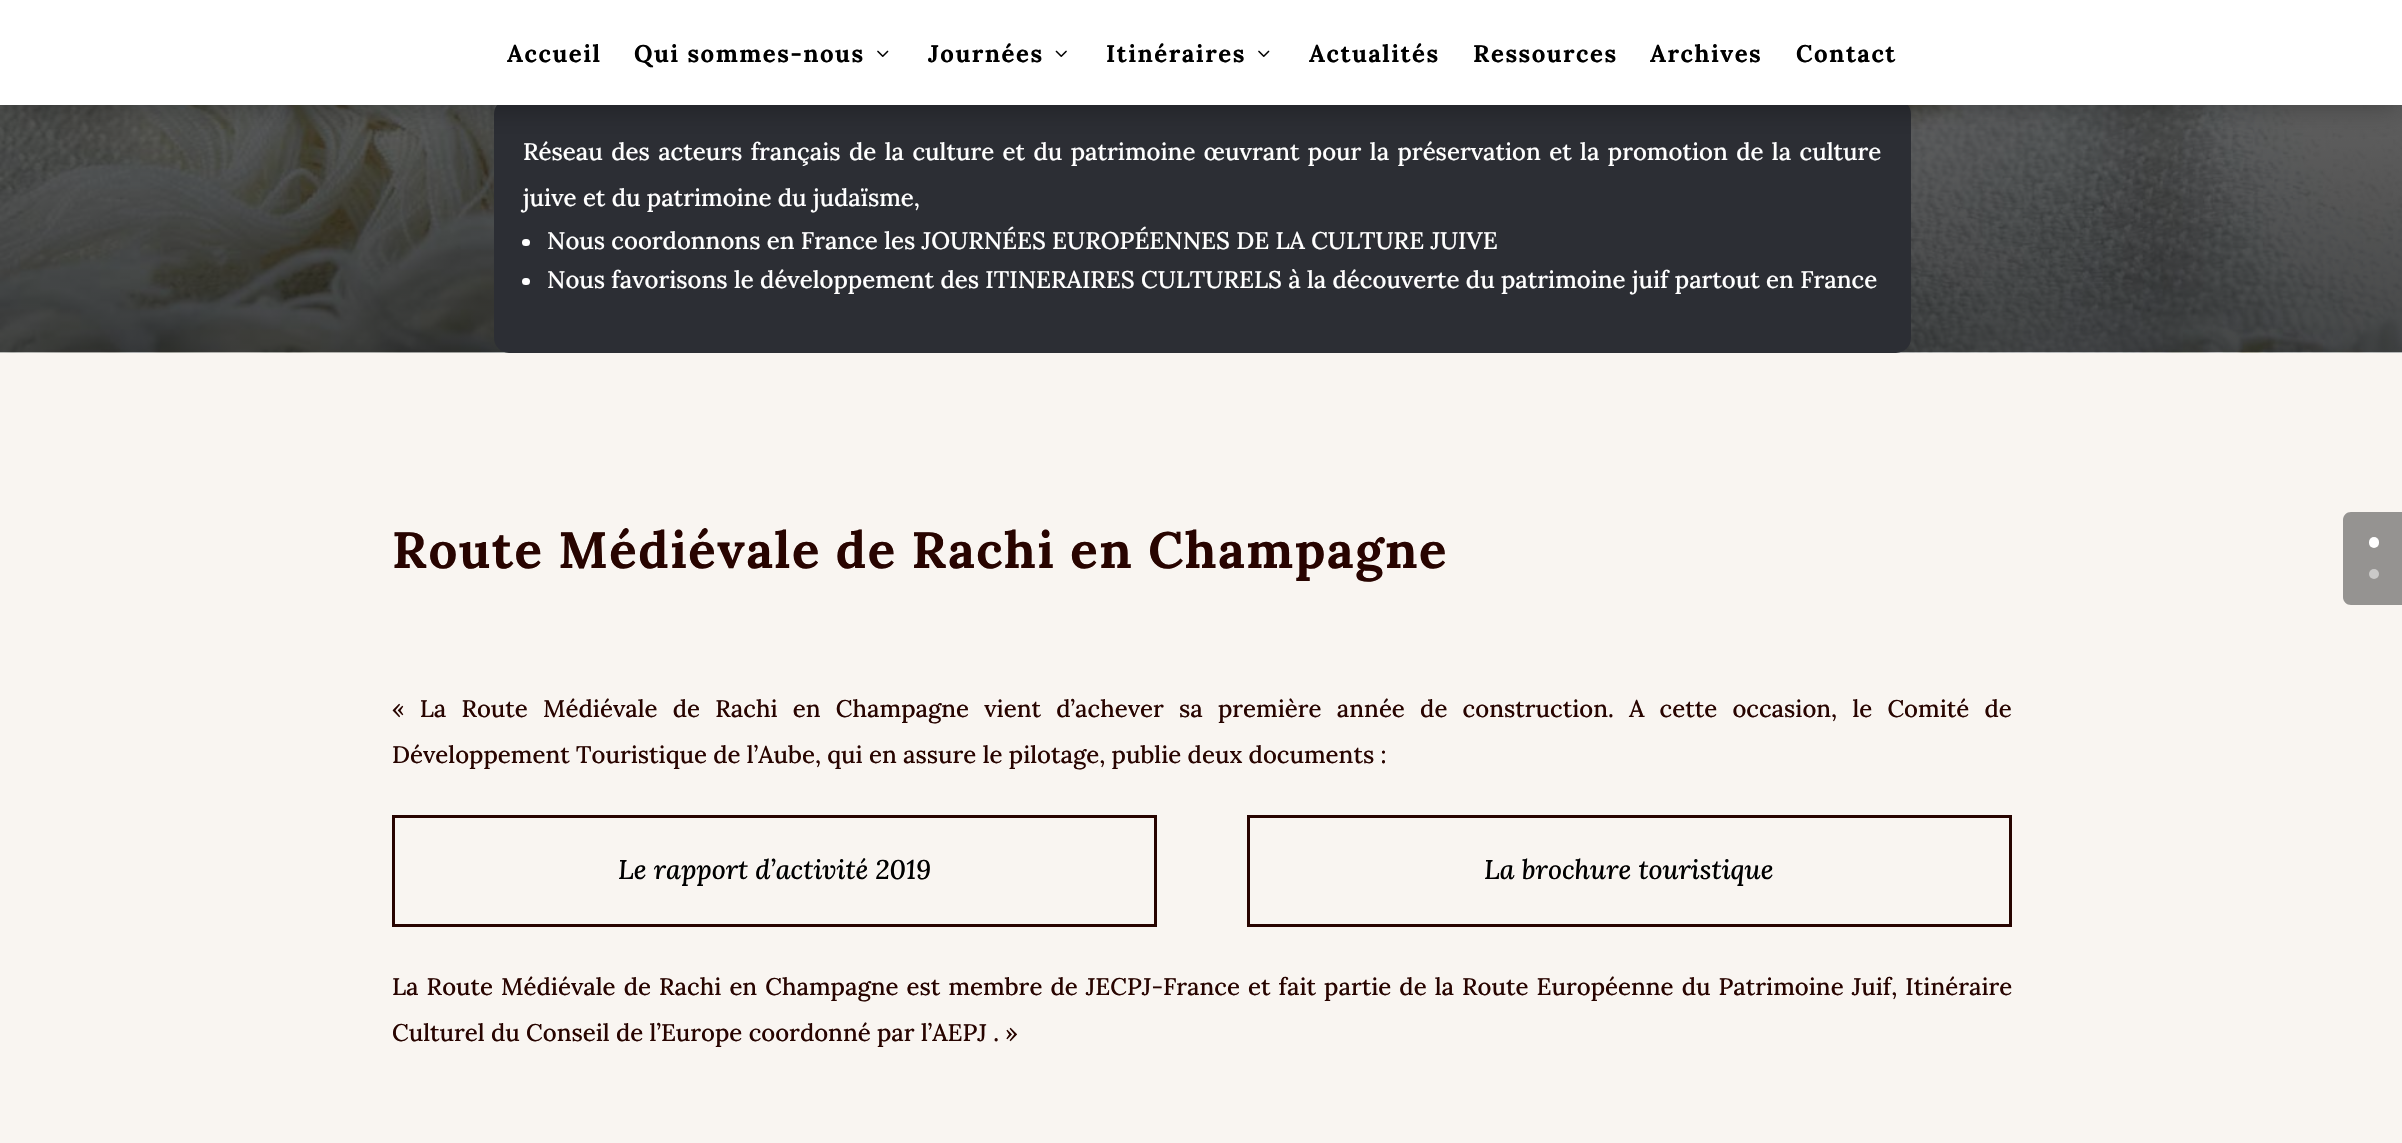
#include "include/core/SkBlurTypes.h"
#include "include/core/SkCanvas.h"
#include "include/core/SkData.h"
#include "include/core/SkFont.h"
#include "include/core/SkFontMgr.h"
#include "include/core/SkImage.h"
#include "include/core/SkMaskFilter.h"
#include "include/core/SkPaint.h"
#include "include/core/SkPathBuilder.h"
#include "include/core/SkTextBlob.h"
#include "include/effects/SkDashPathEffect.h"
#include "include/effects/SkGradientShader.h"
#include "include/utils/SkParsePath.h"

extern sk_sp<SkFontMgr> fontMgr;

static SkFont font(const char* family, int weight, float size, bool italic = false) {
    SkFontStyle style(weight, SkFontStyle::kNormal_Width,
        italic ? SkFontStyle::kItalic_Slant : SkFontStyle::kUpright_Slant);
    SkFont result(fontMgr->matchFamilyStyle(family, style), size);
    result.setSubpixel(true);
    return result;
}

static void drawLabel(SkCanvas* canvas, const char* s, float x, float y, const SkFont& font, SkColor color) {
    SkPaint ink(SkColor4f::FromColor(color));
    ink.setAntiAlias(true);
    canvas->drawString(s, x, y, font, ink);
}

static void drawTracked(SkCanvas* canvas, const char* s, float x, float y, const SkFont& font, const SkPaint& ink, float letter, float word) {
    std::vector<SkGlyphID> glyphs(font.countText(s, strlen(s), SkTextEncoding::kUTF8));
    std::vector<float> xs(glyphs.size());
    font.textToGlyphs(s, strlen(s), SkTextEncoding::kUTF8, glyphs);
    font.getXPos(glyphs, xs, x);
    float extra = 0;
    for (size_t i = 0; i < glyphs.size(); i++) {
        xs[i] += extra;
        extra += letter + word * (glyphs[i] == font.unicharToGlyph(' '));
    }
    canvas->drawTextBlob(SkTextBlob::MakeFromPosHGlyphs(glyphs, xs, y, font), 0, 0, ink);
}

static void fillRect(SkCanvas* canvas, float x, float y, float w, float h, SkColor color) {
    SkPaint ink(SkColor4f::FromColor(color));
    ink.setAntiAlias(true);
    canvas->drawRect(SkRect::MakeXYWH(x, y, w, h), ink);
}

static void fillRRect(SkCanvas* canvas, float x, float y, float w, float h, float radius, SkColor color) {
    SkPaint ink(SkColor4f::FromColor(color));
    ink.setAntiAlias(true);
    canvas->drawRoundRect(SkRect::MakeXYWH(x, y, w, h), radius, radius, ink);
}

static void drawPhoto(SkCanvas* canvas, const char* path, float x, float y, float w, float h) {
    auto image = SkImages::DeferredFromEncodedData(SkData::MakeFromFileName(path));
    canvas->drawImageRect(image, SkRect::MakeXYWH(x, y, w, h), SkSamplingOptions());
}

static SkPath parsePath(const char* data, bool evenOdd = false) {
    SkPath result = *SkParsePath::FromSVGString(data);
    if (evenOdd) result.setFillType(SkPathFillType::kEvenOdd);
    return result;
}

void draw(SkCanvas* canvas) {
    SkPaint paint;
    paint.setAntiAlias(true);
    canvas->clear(0xFFFAF6F5);
    drawPhoto(canvas, "assets/img3.png", 0, 105, 2402, 248);
    fillRRect(canvas, 494, 99, 1417, 254, 15, 0xFF2C2E34);
    paint.setColor(0x4D000000);
    paint.setMaskFilter(SkMaskFilter::MakeBlur(kNormal_SkBlurStyle, 13.5f));
    canvas->drawRect(SkRect::MakeXYWH(0, 3, 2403, 105), paint);
    paint.setMaskFilter(nullptr);
    fillRect(canvas, 0, 0, 2402, 105, 0xFFFFFFFF);
    SkFont font1 = font("Lora", 700, 24);
    paint.setColor(0xFF000000);
    drawTracked(canvas, "Accueil", 507, 62, font1, paint, 1.5f, 0);
    drawTracked(canvas, "Qui sommes-nous", 634, 62, font1, paint, 1.5f, 0);
    drawPhoto(canvas, "assets/img1.png", 877, 50, 12, 7);
    drawTracked(canvas, "Journées", 928, 62, font1, paint, 1.5f, 0);
    drawPhoto(canvas, "assets/img2.png", 1055, 50, 12, 7);
    drawTracked(canvas, "Itinéraires", 1106, 62, font1, paint, 1.5f, 0);
    drawPhoto(canvas, "assets/img1.png", 1258, 50, 12, 7);
    drawTracked(canvas, "Actualités", 1309, 62, font1, paint, 1.5f, 0);
    drawTracked(canvas, "Ressources", 1473, 62, font1, paint, 1.5f, 0);
    drawTracked(canvas, "Archives", 1650, 62, font1, paint, 1.5f, 0);
    drawTracked(canvas, "Contact", 1796, 62, font1, paint, 1.5f, 0);
    SkFont font2 = font("Lora", 500, 24);
    paint.setColor(0xFFFFFFFF);
    drawTracked(canvas, "Réseau des acteurs français de la culture et du patrimoine œuvrant pour la préservation et la promotion de la culture", 523, 160, font2, paint, 0, 2.1f);
    drawLabel(canvas, "juive et du patrimoine du judaïsme,", 523, 206, font2, 0xFFFFFFFF);
    fillRRect(canvas, 522, 239, 8, 7, 3.5f, 0xFFFFFFFF);
    drawLabel(canvas, "Nous coordonnons en France les JOURNÉES EUROPÉENNES DE LA CULTURE JUIVE", 547, 249, font2, 0xFFFFFFFF);
    fillRRect(canvas, 522, 278, 8, 7, 3.5f, 0xFFFFFFFF);
    drawLabel(canvas, "Nous favorisons le développement des ITINERAIRES CULTURELS à la découverte du patrimoine juif partout en France", 547, 288, font2, 0xFFFFFFFF);
    fillRect(canvas, 0, 353, 2402, 790, 0xFFF9F5F1);
    SkFont font3 = font("Lora", 700, 51);
    paint.setColor(0xFF280400);
    drawTracked(canvas, "Route Médiévale de Rachi en Champagne", 392, 568, font3, paint, 1.5f, 0);
    drawTracked(canvas, "« La Route Médiévale de Rachi en Champagne vient d’achever sa première année de construction. A cette occasion, le Comité de", 392, 717, font2, paint, 0, 8.9f);
    drawLabel(canvas, "Développement Touristique de l’Aube, qui en assure le pilotage, publie deux documents :", 392, 763, font2, 0xFF280400);
    paint.setStroke(true);
    paint.setStrokeWidth(3);
    canvas->drawRect(SkRect::MakeXYWH(393.5f, 816.5f, 762, 109), paint);
    SkFont font4 = font("Lora", 500, 27, true);
    drawLabel(canvas, "Le rapport d’activité 2019", 618, 879, font4, 0xFF000000);
    canvas->drawRect(SkRect::MakeXYWH(1248.5f, 816.5f, 762, 109), paint);
    drawLabel(canvas, "La brochure touristique", 1484, 879, font4, 0xFF000000);
    paint.setStroke(false);
    drawTracked(canvas, "La Route Médiévale de Rachi en Champagne est membre de JECPJ-France et fait partie de la Route Européenne du Patrimoine Juif, Itinéraire", 392, 995, font2, paint, 0, 1.75f);
    drawLabel(canvas, "Culturel du Conseil de l’Europe coordonné par l’AEPJ . »", 392, 1041, font2, 0xFF280400);
    paint.setColor(0xFF959391);
    canvas->drawPath(parsePath("M2351 512H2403V605H2351C2346.5 605 2343 601.5 2343 597V520C2343 515.5 2346.5 512 2351 512Z"), paint);
    fillRRect(canvas, 2369, 537, 10, 11, 5, 0xFFFFFFFF);
    paint.setColor(0xFFCAC9C8);
    canvas->drawCircle(2374, 574, 5, paint);
}
